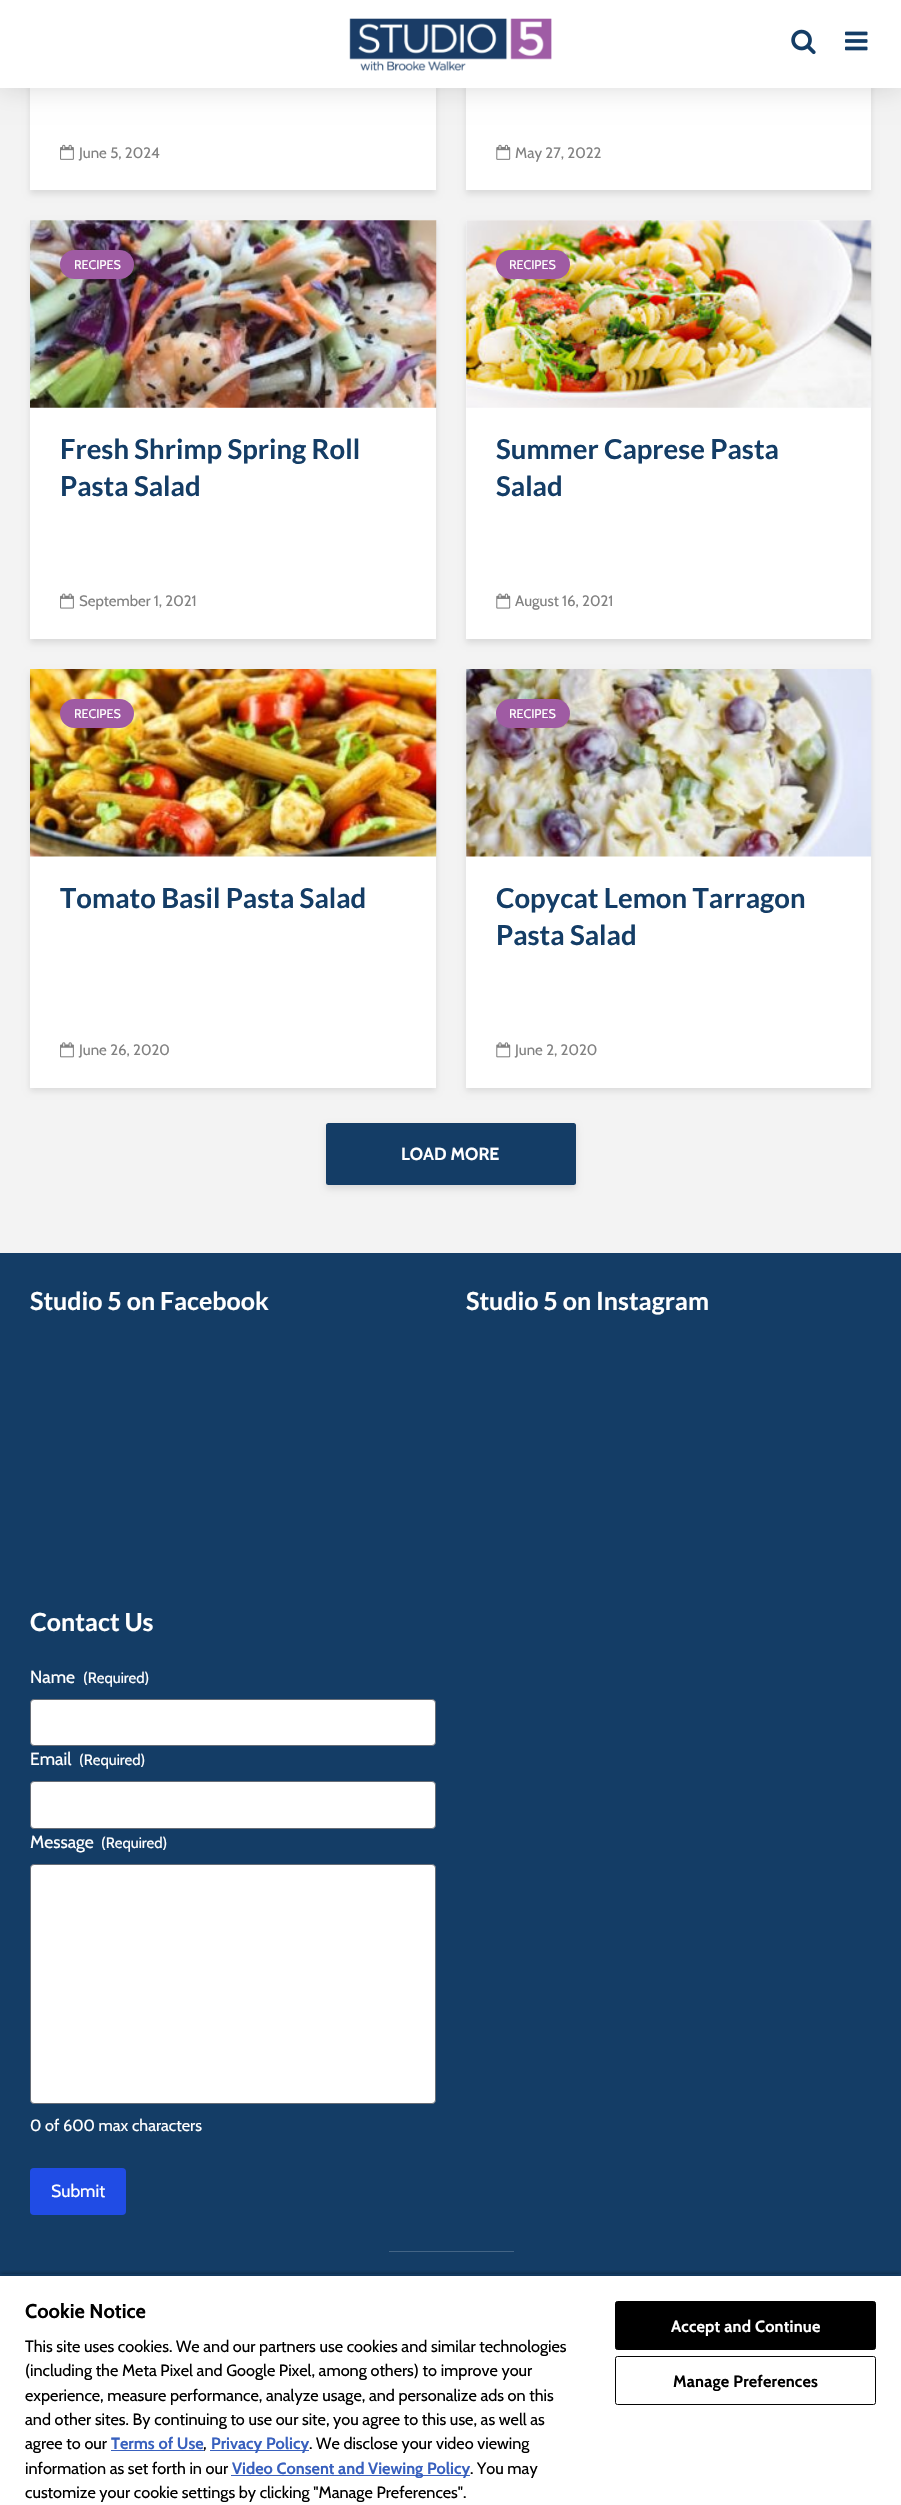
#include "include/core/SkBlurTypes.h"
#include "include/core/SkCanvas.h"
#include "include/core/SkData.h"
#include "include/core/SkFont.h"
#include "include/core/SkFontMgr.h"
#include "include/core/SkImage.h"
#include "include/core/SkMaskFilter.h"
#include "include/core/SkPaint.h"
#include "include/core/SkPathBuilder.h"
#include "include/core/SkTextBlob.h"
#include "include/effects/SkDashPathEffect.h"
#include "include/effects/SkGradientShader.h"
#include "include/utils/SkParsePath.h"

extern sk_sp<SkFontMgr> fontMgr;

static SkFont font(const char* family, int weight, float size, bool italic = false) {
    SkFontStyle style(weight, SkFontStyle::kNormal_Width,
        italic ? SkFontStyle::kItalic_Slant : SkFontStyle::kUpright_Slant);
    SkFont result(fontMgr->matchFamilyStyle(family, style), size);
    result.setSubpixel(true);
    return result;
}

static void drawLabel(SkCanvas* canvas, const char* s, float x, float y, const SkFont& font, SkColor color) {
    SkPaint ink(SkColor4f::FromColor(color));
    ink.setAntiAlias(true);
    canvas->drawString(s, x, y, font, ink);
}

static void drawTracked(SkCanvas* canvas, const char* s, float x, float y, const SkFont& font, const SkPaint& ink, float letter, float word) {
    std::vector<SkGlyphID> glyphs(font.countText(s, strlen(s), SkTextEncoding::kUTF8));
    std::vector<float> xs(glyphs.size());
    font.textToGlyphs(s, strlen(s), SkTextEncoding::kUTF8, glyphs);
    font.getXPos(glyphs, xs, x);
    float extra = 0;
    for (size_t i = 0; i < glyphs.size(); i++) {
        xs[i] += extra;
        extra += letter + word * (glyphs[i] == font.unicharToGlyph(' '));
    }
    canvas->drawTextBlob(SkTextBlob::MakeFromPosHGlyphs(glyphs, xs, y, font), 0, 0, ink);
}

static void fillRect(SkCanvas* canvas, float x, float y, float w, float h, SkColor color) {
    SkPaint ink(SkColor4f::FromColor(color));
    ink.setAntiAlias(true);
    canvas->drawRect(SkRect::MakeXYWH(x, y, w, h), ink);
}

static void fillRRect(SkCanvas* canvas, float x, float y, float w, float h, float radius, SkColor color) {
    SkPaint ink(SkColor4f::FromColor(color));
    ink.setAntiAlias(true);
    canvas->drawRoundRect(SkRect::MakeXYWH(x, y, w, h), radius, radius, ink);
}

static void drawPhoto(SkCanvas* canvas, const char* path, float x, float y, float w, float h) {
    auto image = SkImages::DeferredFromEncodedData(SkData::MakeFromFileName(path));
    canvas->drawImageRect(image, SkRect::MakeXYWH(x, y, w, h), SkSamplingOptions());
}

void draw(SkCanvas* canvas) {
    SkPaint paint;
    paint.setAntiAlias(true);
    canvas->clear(0xFFF3F3F3);
    paint.setColor(0x1A000101);
    paint.setMaskFilter(SkMaskFilter::MakeBlur(kNormal_SkBlurStyle, 3));
    canvas->drawRect(SkRect::MakeXYWH(30, -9, 406, 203), paint);
    paint.setMaskFilter(nullptr);
    fillRect(canvas, 30, 88, 406, 102, 0xFFFFFFFF);
    paint.setMaskFilter(SkMaskFilter::MakeBlur(kNormal_SkBlurStyle, 3));
    canvas->drawRect(SkRect::MakeXYWH(466, -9, 405, 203), paint);
    paint.setMaskFilter(nullptr);
    fillRect(canvas, 466, 88, 405, 102, 0xFFFFFFFF);
    paint.setColor(0x26000000);
    paint.setMaskFilter(SkMaskFilter::MakeBlur(kNormal_SkBlurStyle, 12.5f));
    canvas->drawRect(SkRect::MakeXYWH(0, 0, 901, 88), paint);
    paint.setMaskFilter(nullptr);
    fillRect(canvas, 0, 0, 901, 88, 0xFFFFFFFF);
    drawPhoto(canvas, "assets/img1.png", 349, 18, 203, 53);
    drawPhoto(canvas, "assets/img2.png", 791, 29, 25, 26);
    drawPhoto(canvas, "assets/img3.png", 845, 31, 23, 20);
    drawPhoto(canvas, "assets/img4.png", 60, 144, 14, 16);
    SkFont font1 = font("Cabin", 400, 15);
    drawLabel(canvas, "June 5, 2024", 79, 158, font1, 0xFF818181);
    drawPhoto(canvas, "assets/img5.png", 496, 144, 15, 16);
    drawLabel(canvas, "May 27, 2022", 515, 158, font1, 0xFF818181);
    paint.setColor(0x1A000101);
    paint.setMaskFilter(SkMaskFilter::MakeBlur(kNormal_SkBlurStyle, 3));
    canvas->drawRect(SkRect::MakeXYWH(30, 224, 406, 419), paint);
    paint.setMaskFilter(nullptr);
    fillRect(canvas, 30, 220, 406, 419, 0xFFFFFFFF);
    drawPhoto(canvas, "assets/img6.png", 30, 220, 407, 188);
    fillRRect(canvas, 60, 250, 74, 29, 14.5f, 0xFF9F5BA3);
    SkFont font2 = font("Cabin", 400, 12.5f);
    drawLabel(canvas, "RECIPES", 74, 269, font2, 0xFFFFFFFF);
    SkFont font3 = font("Lato", 700, 27.5f);
    drawLabel(canvas, "Fresh Shrimp Spring Roll", 60, 459, font3, 0xFF143D66);
    drawLabel(canvas, "Pasta Salad", 60, 496, font3, 0xFF143D66);
    drawPhoto(canvas, "assets/img7.png", 60, 593, 14, 16);
    drawLabel(canvas, "September 1, 2021", 79, 606, font1, 0xFF818181);
    paint.setMaskFilter(SkMaskFilter::MakeBlur(kNormal_SkBlurStyle, 3));
    canvas->drawRect(SkRect::MakeXYWH(466, 224, 405, 419), paint);
    paint.setMaskFilter(nullptr);
    fillRect(canvas, 466, 220, 405, 419, 0xFFFFFFFF);
    drawPhoto(canvas, "assets/img8.png", 466, 220, 406, 188);
    fillRRect(canvas, 496, 250, 74, 29, 14.5f, 0xFF9F5BA3);
    drawLabel(canvas, "RECIPES", 509, 269, font2, 0xFFFFFFFF);
    drawLabel(canvas, "Summer Caprese Pasta", 496, 459, font3, 0xFF143D66);
    drawLabel(canvas, "Salad", 496, 496, font3, 0xFF143D66);
    drawPhoto(canvas, "assets/img9.png", 496, 593, 15, 16);
    drawLabel(canvas, "August 16, 2021", 515, 606, font1, 0xFF818181);
    paint.setMaskFilter(SkMaskFilter::MakeBlur(kNormal_SkBlurStyle, 3));
    canvas->drawRect(SkRect::MakeXYWH(30, 673, 406, 418), paint);
    paint.setMaskFilter(nullptr);
    fillRect(canvas, 30, 856, 406, 232, 0xFFFFFFFF);
    drawPhoto(canvas, "assets/img10.png", 30, 669, 407, 188);
    fillRRect(canvas, 60, 699, 74, 29, 14.5f, 0xFF9F5BA3);
    drawLabel(canvas, "RECIPES", 74, 718, font2, 0xFFFFFFFF);
    drawLabel(canvas, "Tomato Basil Pasta Salad", 60, 908, font3, 0xFF143D66);
    drawPhoto(canvas, "assets/img11.png", 60, 1042, 14, 16);
    drawLabel(canvas, "June 26, 2020", 79, 1055, font1, 0xFF818181);
    paint.setMaskFilter(SkMaskFilter::MakeBlur(kNormal_SkBlurStyle, 3));
    canvas->drawRect(SkRect::MakeXYWH(466, 673, 405, 418), paint);
    paint.setMaskFilter(nullptr);
    fillRect(canvas, 466, 669, 405, 419, 0xFFFFFFFF);
    drawPhoto(canvas, "assets/img12.png", 466, 669, 406, 188);
    fillRRect(canvas, 496, 699, 74, 29, 14.5f, 0xFF9F5BA3);
    drawLabel(canvas, "RECIPES", 509, 718, font2, 0xFFFFFFFF);
    drawLabel(canvas, "Copycat Lemon Tarragon", 496, 908, font3, 0xFF143D66);
    drawLabel(canvas, "Pasta Salad", 496, 945, font3, 0xFF143D66);
    drawPhoto(canvas, "assets/img13.png", 496, 1042, 15, 16);
    drawLabel(canvas, "June 2, 2020", 515, 1055, font1, 0xFF818181);
    paint.setColor(0x1A000000);
    paint.setMaskFilter(SkMaskFilter::MakeBlur(kNormal_SkBlurStyle, 3));
    canvas->drawRoundRect(SkRect::MakeXYWH(326, 1126, 250, 63), 2.5f, 2.5f, paint);
    paint.setMaskFilter(nullptr);
    fillRRect(canvas, 326, 1123, 250, 62, 2.5f, 0xFF143D66);
    SkFont font4 = font("Cabin", 700, 17.5f);
    drawLabel(canvas, "LOAD MORE", 401, 1160, font4, 0xFFFFFFFF);
    fillRect(canvas, 0, 1253, 901, 1023, 0xFF143D66);
    SkFont font5 = font("Lato", 700, 25);
    drawLabel(canvas, "Studio 5 on Facebook", 30, 1310, font5, 0xFFFFFFFF);
    drawLabel(canvas, "Studio 5 on Instagram", 466, 1310, font5, 0xFFFFFFFF);
    drawLabel(canvas, "Contact Us", 30, 1631, font5, 0xFFFFFFFF);
    SkFont font6 = font("Cabin", 400, 17.5f);
    drawLabel(canvas, "Name", 30, 1683, font6, 0xFFFFFFFF);
    drawLabel(canvas, "(Required)", 83, 1683, font1, 0xFFFFFFFF);
    paint.setColor(0xFFFFFFFF);
    canvas->drawRoundRect(SkRect::MakeXYWH(30.5f, 1699.5f, 405, 46), 3.5f, 3.5f, paint);
    paint.setStroke(true);
    paint.setStrokeWidth(1);
    paint.setColor(0xFF686E77);
    canvas->drawRoundRect(SkRect::MakeXYWH(30.5f, 1699.5f, 405, 46), 3.5f, 3.5f, paint);
    drawLabel(canvas, "Email", 30, 1765, font6, 0xFFFFFFFF);
    drawLabel(canvas, "(Required)", 79, 1765, font1, 0xFFFFFFFF);
    paint.setStroke(false);
    paint.setColor(0xFFFFFFFF);
    canvas->drawRoundRect(SkRect::MakeXYWH(30.5f, 1781.5f, 405, 47), 3.5f, 3.5f, paint);
    paint.setStroke(true);
    paint.setColor(0xFF686E77);
    canvas->drawRoundRect(SkRect::MakeXYWH(30.5f, 1781.5f, 405, 47), 3.5f, 3.5f, paint);
    drawLabel(canvas, "Message", 30, 1848, font6, 0xFFFFFFFF);
    drawLabel(canvas, "(Required)", 101, 1848, font1, 0xFFFFFFFF);
    paint.setStroke(false);
    paint.setColor(0xFFFFFFFF);
    canvas->drawRoundRect(SkRect::MakeXYWH(30.5f, 1864.5f, 405, 239), 3.5f, 3.5f, paint);
    paint.setStroke(true);
    paint.setColor(0xFF686E77);
    canvas->drawRoundRect(SkRect::MakeXYWH(30.5f, 1864.5f, 405, 239), 3.5f, 3.5f, paint);
    SkFont font7 = font("Cabin", 400, 16.25f);
    drawLabel(canvas, "0 of 600 max characters", 30, 2131, font7, 0xFFFFFFFF);
    fillRRect(canvas, 30, 2168, 96, 47, 4, 0xFF204CE5);
    drawLabel(canvas, "Submit", 51, 2197, font6, 0xFFFFFFFF);
    fillRect(canvas, 389, 2251, 125, 1, 0xFF436485);
    canvas->save();
    canvas->clipRect(SkRect::MakeXYWH(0, 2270, 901, 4));
    paint.setStroke(false);
    paint.setColor(0x59000000);
    paint.setMaskFilter(SkMaskFilter::MakeBlur(kNormal_SkBlurStyle, 2.5f));
    canvas->drawRect(SkRect::MakeXYWH(0, 2274, 901, 231), paint);
    paint.setMaskFilter(nullptr);
    canvas->restore();
    paint.setColor(0x33000000);
    paint.setMaskFilter(SkMaskFilter::MakeBlur(kNormal_SkBlurStyle, 2.5f));
    canvas->drawRect(SkRect::MakeXYWH(0, 2276, 901, 229), paint);
    paint.setMaskFilter(nullptr);
    fillRect(canvas, 0, 2276, 901, 229, 0xFFFFFFFF);
    SkFont font8 = font("Cabin", 700, 20);
    drawLabel(canvas, "Cookie Notice", 25, 2318, font8, 0xFF000000);
    drawLabel(canvas, "This site uses cookies. We and our partners use cookies and similar technologies", 25, 2352, font7, 0xFF000000);
    drawLabel(canvas, "(including the Meta Pixel and Google Pixel, among others) to improve your", 25, 2376, font7, 0xFF000000);
    drawLabel(canvas, "experience, measure performance, analyze usage, and personalize ads on this", 25, 2401, font7, 0xFF000000);
    drawLabel(canvas, "and other sites. By continuing to use our site, you agree to this use, as well as", 25, 2425, font7, 0xFF000000);
    drawLabel(canvas, "agree to our", 25, 2449, font7, 0xFF000000);
    SkFont font9 = font("Cabin", 700, 16.25f);
    drawLabel(canvas, "Terms of Use", 111, 2449, font9, 0xFF3860BE);
    fillRect(canvas, 111, 2450, 93, 1, 0xFF3860BE);
    drawLabel(canvas, ",", 203, 2449, font7, 0xFF000000);
    fillRect(canvas, 210, 2450, 99, 1, 0xFF3860BE);
    drawLabel(canvas, "Privacy Policy", 211, 2449, font9, 0xFF3860BE);
    drawLabel(canvas, ". We disclose your video viewing", 309, 2449, font7, 0xFF000000);
    drawLabel(canvas, "information as set forth in our", 25, 2474, font7, 0xFF000000);
    fillRect(canvas, 231, 2475, 239, 1, 0xFF3860BE);
    drawLabel(canvas, "Video Consent and Viewing Policy", 232, 2474, font9, 0xFF3860BE);
    drawLabel(canvas, ". You may", 470, 2474, font7, 0xFF000000);
    drawLabel(canvas, "customize your cookie settings by clicking \"Manage Preferences\".", 25, 2498, font7, 0xFF000000);
    paint.setColor(0xFF000000);
    canvas->drawRoundRect(SkRect::MakeXYWH(615.5f, 2301.5f, 260, 48), 2, 2, paint);
    paint.setStroke(true);
    canvas->drawRoundRect(SkRect::MakeXYWH(615.5f, 2301.5f, 260, 48), 2, 2, paint);
    paint.setStroke(false);
    paint.setColor(0xFFFFFFFF);
    drawTracked(canvas, "Accept and Continue", 671, 2332, font9, paint, 0.2f, 0);
    paint.setStroke(true);
    paint.setColor(0xFF050505);
    canvas->drawRoundRect(SkRect::MakeXYWH(615.5f, 2356.5f, 260, 48), 2, 2, paint);
    paint.setStroke(false);
    paint.setColor(0xFF000000);
    drawTracked(canvas, "Manage Preferences", 673, 2387, font9, paint, 0.2f, 0);
}
